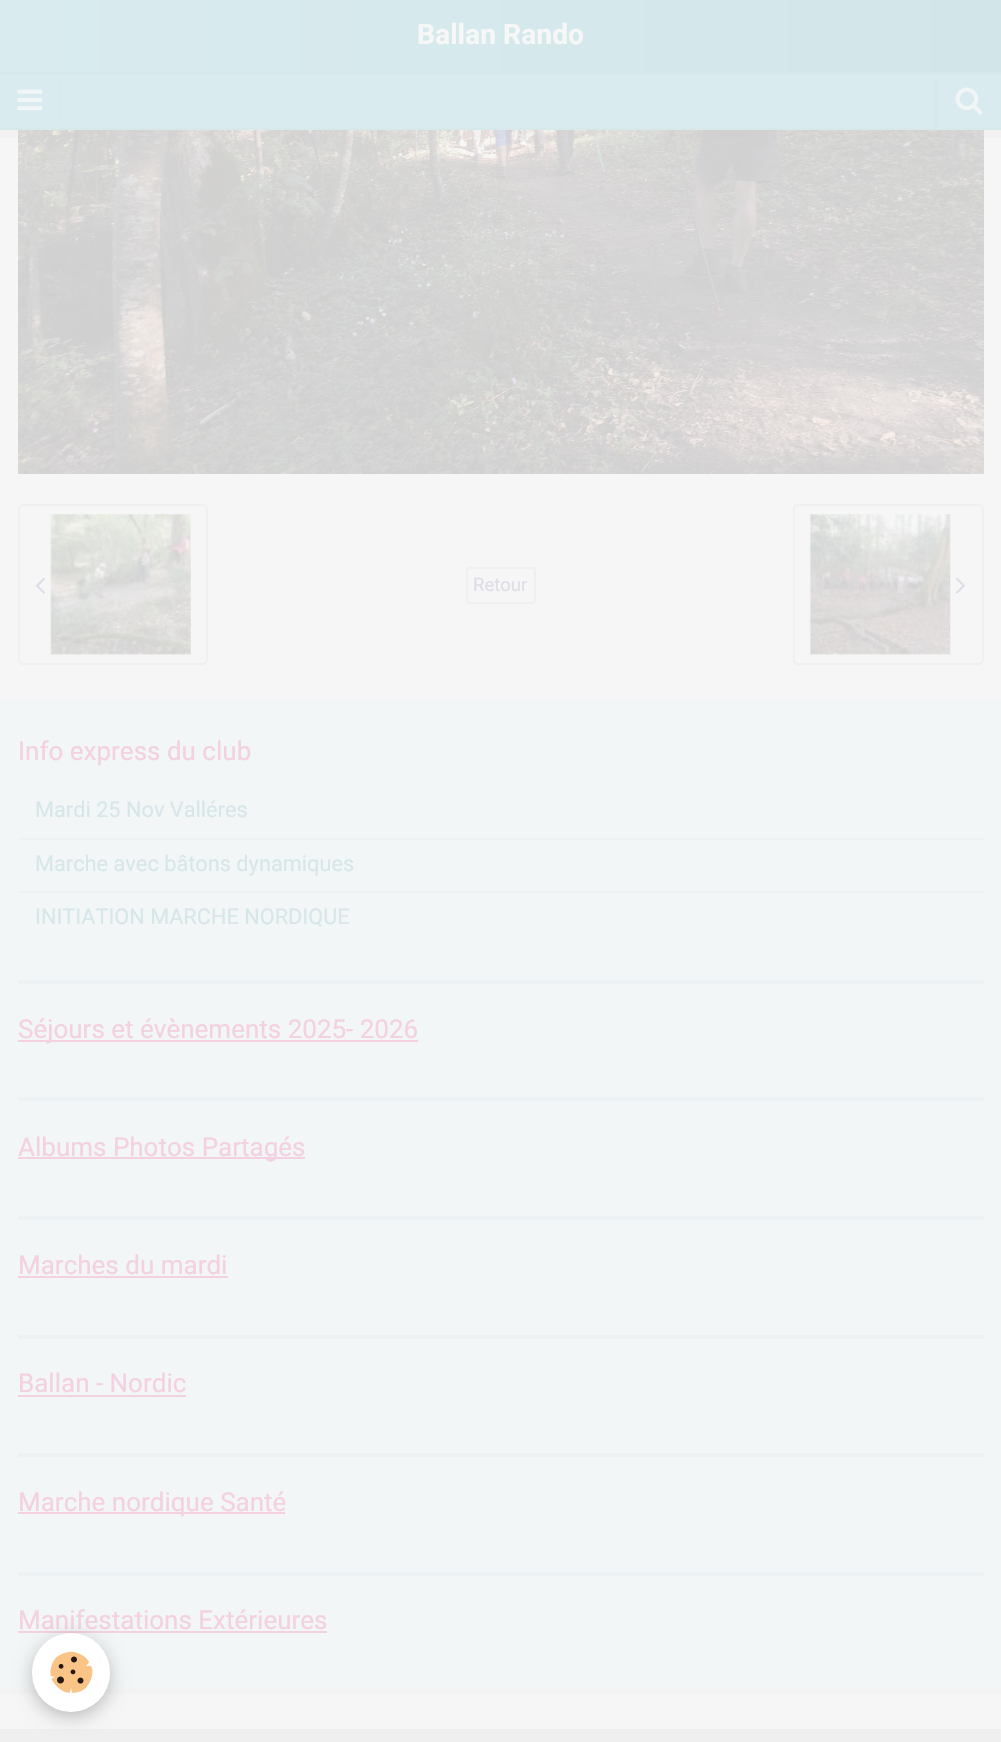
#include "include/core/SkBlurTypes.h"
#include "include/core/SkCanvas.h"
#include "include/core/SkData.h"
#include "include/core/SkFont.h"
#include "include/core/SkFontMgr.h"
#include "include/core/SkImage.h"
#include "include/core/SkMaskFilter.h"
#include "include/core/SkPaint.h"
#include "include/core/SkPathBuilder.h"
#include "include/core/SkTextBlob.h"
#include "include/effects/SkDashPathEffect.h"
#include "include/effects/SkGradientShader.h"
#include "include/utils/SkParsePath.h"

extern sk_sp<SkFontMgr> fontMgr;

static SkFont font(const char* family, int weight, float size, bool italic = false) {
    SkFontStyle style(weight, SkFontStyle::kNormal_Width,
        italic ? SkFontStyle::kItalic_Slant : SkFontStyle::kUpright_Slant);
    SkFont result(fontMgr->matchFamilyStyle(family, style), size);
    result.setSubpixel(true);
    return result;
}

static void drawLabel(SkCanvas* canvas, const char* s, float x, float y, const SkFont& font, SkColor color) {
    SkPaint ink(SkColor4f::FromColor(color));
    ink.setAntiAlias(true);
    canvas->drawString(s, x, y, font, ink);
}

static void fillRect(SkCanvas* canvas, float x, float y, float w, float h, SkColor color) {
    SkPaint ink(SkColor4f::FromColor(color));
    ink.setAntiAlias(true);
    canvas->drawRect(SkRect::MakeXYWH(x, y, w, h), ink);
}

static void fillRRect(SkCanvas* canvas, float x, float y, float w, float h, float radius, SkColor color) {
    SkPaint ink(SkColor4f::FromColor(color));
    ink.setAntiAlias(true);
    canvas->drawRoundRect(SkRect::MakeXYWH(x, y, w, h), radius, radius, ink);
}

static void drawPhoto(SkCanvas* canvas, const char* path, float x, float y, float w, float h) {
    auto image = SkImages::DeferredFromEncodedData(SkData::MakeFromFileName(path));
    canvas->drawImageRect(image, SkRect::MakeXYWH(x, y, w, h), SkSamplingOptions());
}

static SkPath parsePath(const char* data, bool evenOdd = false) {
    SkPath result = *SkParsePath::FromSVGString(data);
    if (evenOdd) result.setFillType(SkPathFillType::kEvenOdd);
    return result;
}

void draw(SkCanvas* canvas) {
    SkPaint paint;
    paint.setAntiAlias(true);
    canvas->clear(0xFFF6F6F6);
    drawPhoto(canvas, "assets/img1.png", 0, 1729, 1001, 13);
    drawPhoto(canvas, "assets/img4.png", 18, 130, 966, 344);
    fillRect(canvas, 0, 130, 1001, 8, 0x1ACFCFCF);
    {
        const SkColor colors[] = {0xFFD9EBEE, 0xFFD2E6E9};
        const float stops[] = {0, 1};
        const SkPoint ends[] = {{0, 65}, {1001, 65}};
        paint.setShader(SkGradientShader::MakeLinear(ends, colors, stops, 2, SkTileMode::kClamp));
        paint.setAlpha(255);
    }
    canvas->drawRect(SkRect::MakeXYWH(0, 0, 1001, 72), paint);
    SkFont font1 = font("Roboto", 700, 28.25f);
    drawLabel(canvas, "Ballan Rando", 417, 44, font1, 0xFFF7F7F7);
    fillRect(canvas, 0, 74, 1001, 54, 0xFFD9EBEE);
    fillRect(canvas, 0, 72, 1001, 2, 0xFFD8E9EB);
    fillRect(canvas, 0, 128, 1001, 2, 0xFFD8E9EB);
    paint.setShader(nullptr);
    paint.setColor(0xFFD8E9EB);
    canvas->drawPath(parsePath("M61 74V128L60 126V75Z"), paint);
    drawPhoto(canvas, "assets/img2.png", 17, 89, 26, 22);
    fillRect(canvas, 935, 74, 2, 54, 0xFFD8E9EB);
    drawPhoto(canvas, "assets/img3.png", 955, 87, 28, 28);
    drawPhoto(canvas, "assets/img5.png", 35, 577, 11, 17);
    drawPhoto(canvas, "assets/img6.png", 50, 514, 141, 141);
    paint.setStroke(true);
    paint.setStrokeWidth(2);
    paint.setColor(0xFFF0EFF2);
    canvas->drawRoundRect(SkRect::MakeXYWH(19, 505, 188, 159), 4, 4, paint);
    canvas->drawRoundRect(SkRect::MakeXYWH(467, 568, 68, 35), 3, 3, paint);
    SkFont font2 = font("Roboto", 400, 18.5f);
    drawLabel(canvas, "Retour", 473, 591, font2, 0xFFE0DDE7);
    drawPhoto(canvas, "assets/img7.png", 809, 514, 142, 141);
    drawPhoto(canvas, "assets/img8.png", 955, 577, 10, 17);
    canvas->drawRoundRect(SkRect::MakeXYWH(794, 505, 189, 159), 4, 4, paint);
    fillRect(canvas, 0, 700, 1001, 989, 0xFFF3F6F7);
    SkFont font3 = font("Roboto", 400, 26);
    drawLabel(canvas, "Info express du club", 18, 760, font3, 0xFFF4D1E0);
    fillRect(canvas, 18, 838, 966, 2, 0xFFEDF3F4);
    SkFont font4 = font("Roboto", 400, 21.75f);
    drawLabel(canvas, "Mardi 25 Nov Valléres", 35, 817, font4, 0xFFD7E7E9);
    fillRect(canvas, 18, 891, 966, 2, 0xFFEDF3F4);
    drawLabel(canvas, "Marche avec bâtons dynamiques", 35, 871, font4, 0xFFD7E7E9);
    drawLabel(canvas, "INITIATION MARCHE NORDIQUE", 35, 924, font4, 0xFFD7E7E9);
    fillRect(canvas, 18, 980, 966, 4, 0xFFEDF3F4);
    fillRect(canvas, 18, 1040, 400, 2, 0xFFF4D1E0);
    drawLabel(canvas, "Séjours et évènements 2025- 2026", 18, 1038, font3, 0xFFF4D1E0);
    fillRect(canvas, 18, 1097, 966, 4, 0xFFEDF3F4);
    fillRect(canvas, 18, 1157, 287, 2, 0xFFF4D1E0);
    drawLabel(canvas, "Albums Photos Partagés", 18, 1156, font3, 0xFFF4D1E0);
    fillRect(canvas, 18, 1216, 966, 4, 0xFFEDF3F4);
    drawLabel(canvas, "Marches du mardi", 18, 1274, font3, 0xFFF4D1E0);
    fillRect(canvas, 18, 1276, 210, 2, 0xFFF4D1E0);
    fillRect(canvas, 18, 1335, 966, 4, 0xFFEDF3F4);
    drawLabel(canvas, "Ballan - Nordic", 18, 1392, font3, 0xFFF4D1E0);
    fillRect(canvas, 18, 1395, 168, 2, 0xFFF4D1E0);
    fillRect(canvas, 18, 1453, 966, 4, 0xFFEDF3F4);
    fillRect(canvas, 18, 1512, 267, 2, 0xFFF4D1E0);
    drawLabel(canvas, "Marche nordique Santé", 18, 1511, font3, 0xFFF4D1E0);
    fillRect(canvas, 18, 1572, 966, 4, 0xFFEDF3F4);
    drawLabel(canvas, "Manifestations Extérieures", 18, 1629, font3, 0xFFF4D1E0);
    fillRect(canvas, 18, 1631, 309, 2, 0xFFF4D1E0);
    fillRect(canvas, 0, 1689, 1001, 5, 0xFFF3F3F3);
    paint.setStroke(false);
    paint.setColor(0x3D000000);
    paint.setMaskFilter(SkMaskFilter::MakeBlur(kNormal_SkBlurStyle, 9));
    canvas->drawRoundRect(SkRect::MakeXYWH(32, 1638, 78, 79), 39, 39, paint);
    paint.setMaskFilter(nullptr);
    fillRRect(canvas, 32, 1633, 78, 79, 39, 0xFFFFFFFF);
    drawPhoto(canvas, "assets/img9.png", 50, 1651, 43, 42);
}
